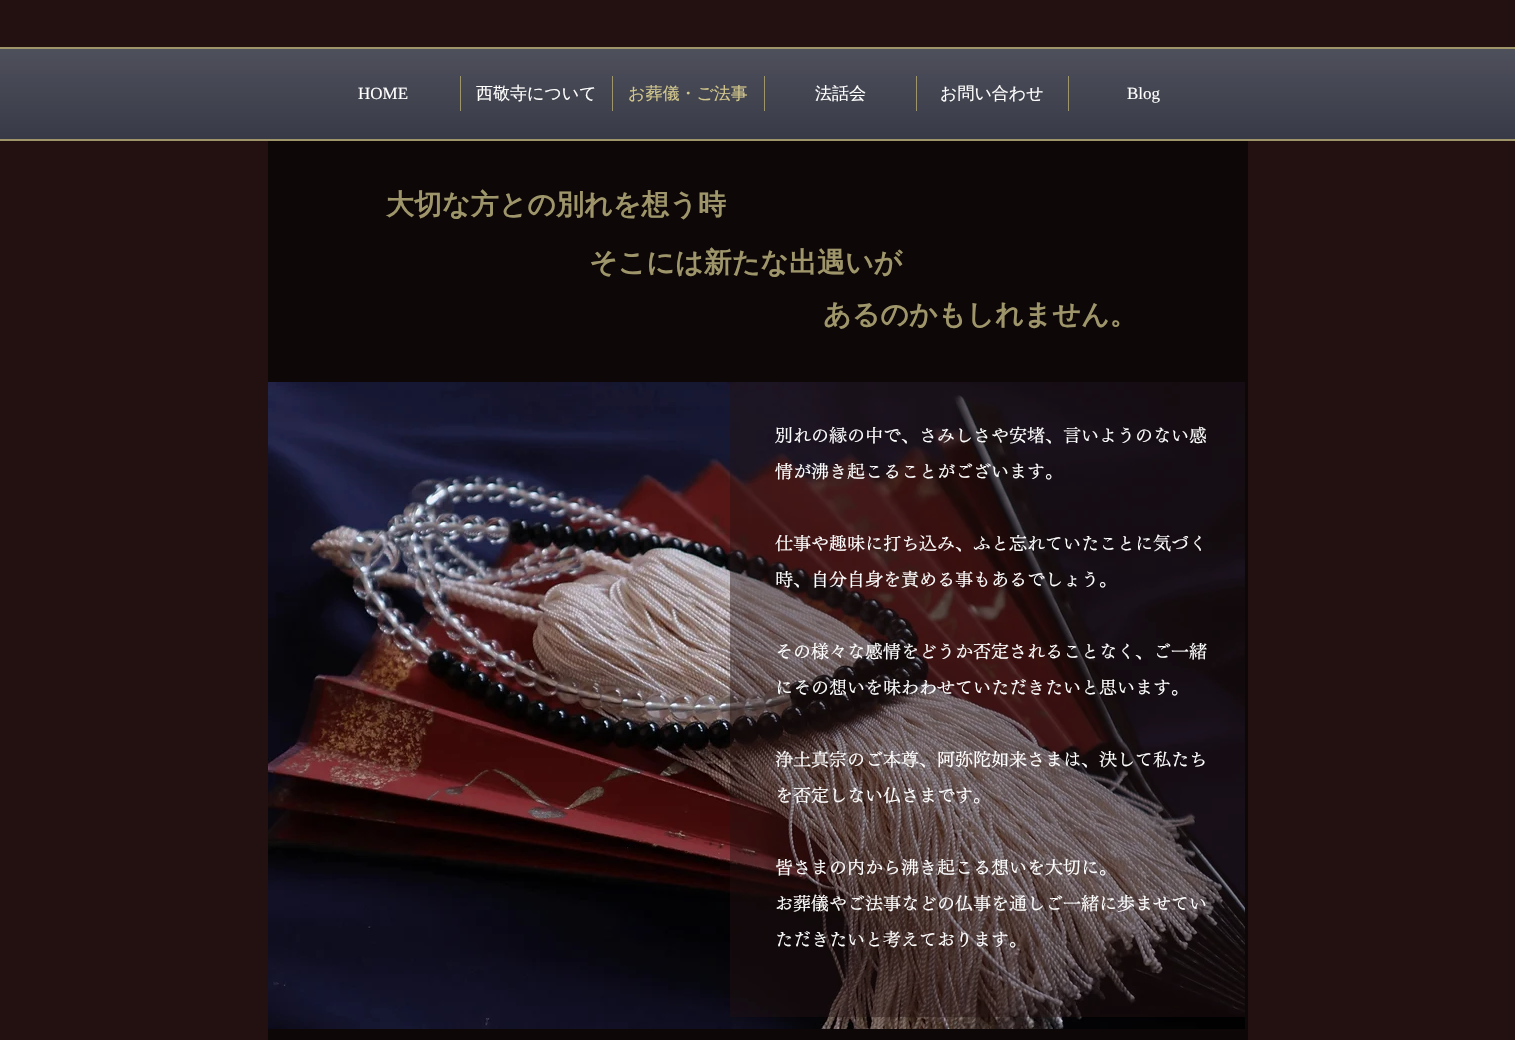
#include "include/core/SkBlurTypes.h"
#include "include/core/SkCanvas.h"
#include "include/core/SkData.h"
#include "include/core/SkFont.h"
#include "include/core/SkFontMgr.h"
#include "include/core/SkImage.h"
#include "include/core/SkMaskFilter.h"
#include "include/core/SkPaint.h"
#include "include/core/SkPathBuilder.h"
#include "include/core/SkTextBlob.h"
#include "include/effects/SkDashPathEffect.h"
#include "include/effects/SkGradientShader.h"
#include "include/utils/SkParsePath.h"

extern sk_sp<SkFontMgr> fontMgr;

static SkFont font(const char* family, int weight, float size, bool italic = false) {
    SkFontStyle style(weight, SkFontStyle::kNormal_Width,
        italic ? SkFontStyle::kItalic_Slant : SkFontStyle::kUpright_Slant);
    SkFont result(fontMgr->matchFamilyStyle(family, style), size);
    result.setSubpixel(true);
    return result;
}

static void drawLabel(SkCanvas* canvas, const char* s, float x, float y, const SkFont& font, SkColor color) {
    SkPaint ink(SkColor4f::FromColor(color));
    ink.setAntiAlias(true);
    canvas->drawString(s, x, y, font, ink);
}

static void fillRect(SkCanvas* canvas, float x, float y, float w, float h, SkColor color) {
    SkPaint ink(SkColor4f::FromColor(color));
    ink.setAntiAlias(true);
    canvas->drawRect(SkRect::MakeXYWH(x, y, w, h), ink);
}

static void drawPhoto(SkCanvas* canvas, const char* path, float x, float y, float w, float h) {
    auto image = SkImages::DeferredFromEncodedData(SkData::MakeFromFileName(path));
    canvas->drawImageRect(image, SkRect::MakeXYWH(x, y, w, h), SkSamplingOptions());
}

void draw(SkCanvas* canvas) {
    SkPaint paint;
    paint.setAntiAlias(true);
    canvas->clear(0xFF231111);
    fillRect(canvas, 0, 49, 1515, 90, 0xFF101222);
    fillRect(canvas, 0, 47, 1515, 2, 0xFF9E966A);
    fillRect(canvas, 0, 139, 1515, 2, 0xFF9E966A);
    drawPhoto(canvas, "assets/img1.png", 0, 49, 1515, 90);
    SkFont font1 = font("Liberation Serif", 400, 17);
    drawLabel(canvas, "HOME", 358, 99, font1, 0xFFFFFFFF);
    fillRect(canvas, 460, 76, 1, 35, 0xFF9E966A);
    SkFont font2 = font("WenQuanYi Zen Hei", 500, 17);
    drawLabel(canvas, "西敬寺について", 476, 99, font2, 0xFFFFFFFF);
    fillRect(canvas, 612, 76, 1, 35, 0xFF9E966A);
    drawLabel(canvas, "お葬儀・ご法事", 628, 99, font2, 0xFFD3C88D);
    fillRect(canvas, 764, 76, 1, 35, 0xFF9E966A);
    drawLabel(canvas, "法話会", 815, 99, font2, 0xFFFFFFFF);
    fillRect(canvas, 916, 76, 1, 35, 0xFF9E966A);
    drawLabel(canvas, "お問い合わせ", 940, 99, font2, 0xFFFFFFFF);
    fillRect(canvas, 1068, 76, 1, 35, 0xFF9E966A);
    drawLabel(canvas, "Blog", 1127, 99, font1, 0xFFFFFFFF);
    fillRect(canvas, 268, 141, 980, 899, 0xFF0E0707);
    SkFont font3 = font("WenQuanYi Zen Hei", 700, 28);
    drawLabel(canvas, "大切な方との別れを想う時", 386, 214, font3, 0xFF9E966A);
    drawLabel(canvas, "そこには新たな出遇いが", 589, 272, font3, 0xFF9E966A);
    drawLabel(canvas, "あるのかもしれません。", 823, 324, font3, 0xFF9E966A);
    drawPhoto(canvas, "assets/img2.png", 268, 382, 977, 647);
    fillRect(canvas, 730, 382, 515, 635, 0x6E231111);
    SkFont font4 = font("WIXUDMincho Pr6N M", 500, 18);
    drawLabel(canvas, "別れの縁の中で、さみしさや安堵、言いようのない感", 775, 442, font4, 0xFFFFFFFF);
    drawLabel(canvas, "情が沸き起こることがございます。", 775, 478, font4, 0xFFFFFFFF);
    drawLabel(canvas, "仕事や趣味に打ち込み、ふと忘れていたことに気づく", 775, 550, font4, 0xFFFFFFFF);
    drawLabel(canvas, "時、自分自身を責める事もあるでしょう。", 775, 586, font4, 0xFFFFFFFF);
    drawLabel(canvas, "その様々な感情をどうか否定されることなく、ご一緒", 775, 658, font4, 0xFFFFFFFF);
    drawLabel(canvas, "にその想いを味わわせていただきたいと思います。", 775, 694, font4, 0xFFFFFFFF);
    drawLabel(canvas, "浄土真宗のご本尊、阿弥陀如来さまは、決して私たち", 775, 766, font4, 0xFFFFFFFF);
    drawLabel(canvas, "を否定しない仏さまです。", 775, 802, font4, 0xFFFFFFFF);
    drawLabel(canvas, "皆さまの内から沸き起こる想いを大切に。", 775, 874, font4, 0xFFFFFFFF);
    drawLabel(canvas, "お葬儀やご法事などの仏事を通しご一緒に歩ませてい", 775, 910, font4, 0xFFFFFFFF);
    drawLabel(canvas, "ただきたいと考えております。", 775, 946, font4, 0xFFFFFFFF);
}
